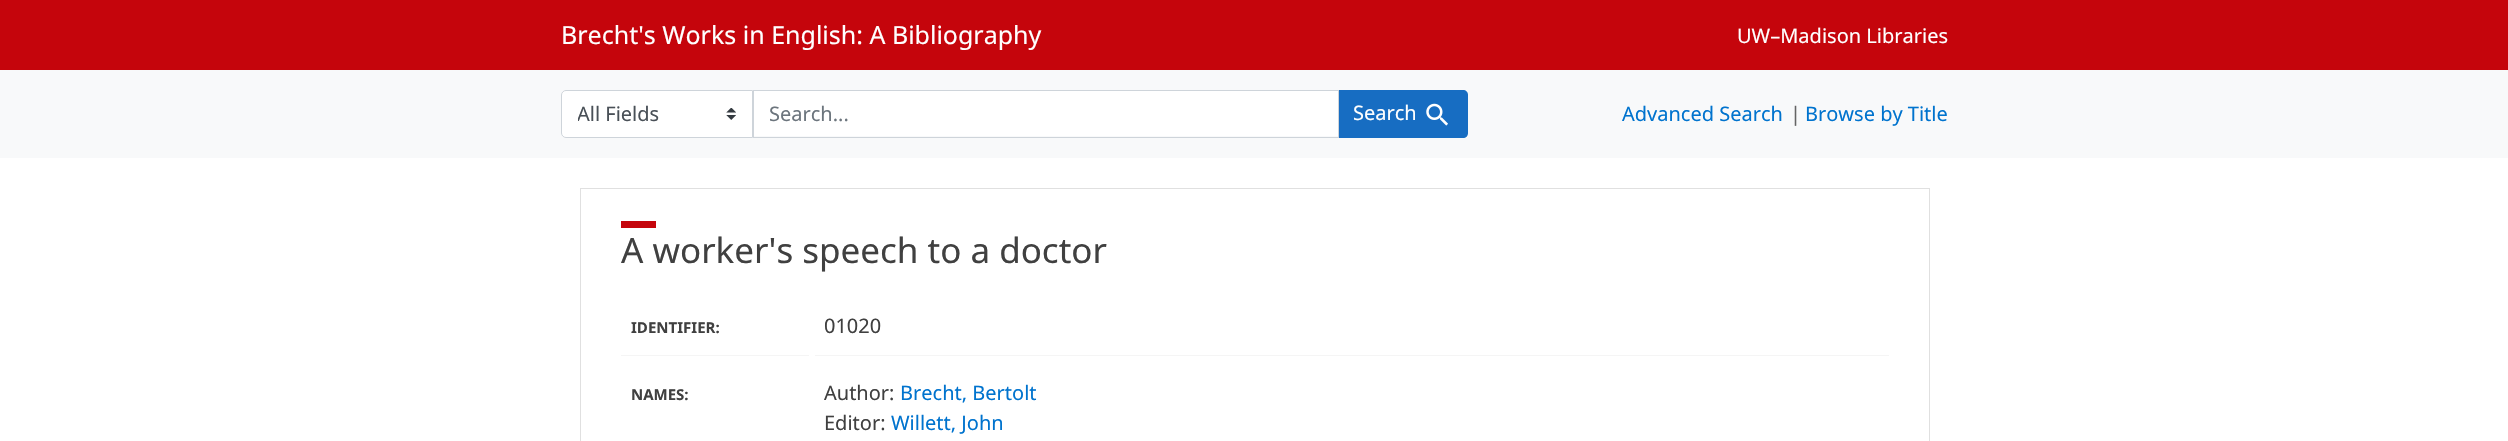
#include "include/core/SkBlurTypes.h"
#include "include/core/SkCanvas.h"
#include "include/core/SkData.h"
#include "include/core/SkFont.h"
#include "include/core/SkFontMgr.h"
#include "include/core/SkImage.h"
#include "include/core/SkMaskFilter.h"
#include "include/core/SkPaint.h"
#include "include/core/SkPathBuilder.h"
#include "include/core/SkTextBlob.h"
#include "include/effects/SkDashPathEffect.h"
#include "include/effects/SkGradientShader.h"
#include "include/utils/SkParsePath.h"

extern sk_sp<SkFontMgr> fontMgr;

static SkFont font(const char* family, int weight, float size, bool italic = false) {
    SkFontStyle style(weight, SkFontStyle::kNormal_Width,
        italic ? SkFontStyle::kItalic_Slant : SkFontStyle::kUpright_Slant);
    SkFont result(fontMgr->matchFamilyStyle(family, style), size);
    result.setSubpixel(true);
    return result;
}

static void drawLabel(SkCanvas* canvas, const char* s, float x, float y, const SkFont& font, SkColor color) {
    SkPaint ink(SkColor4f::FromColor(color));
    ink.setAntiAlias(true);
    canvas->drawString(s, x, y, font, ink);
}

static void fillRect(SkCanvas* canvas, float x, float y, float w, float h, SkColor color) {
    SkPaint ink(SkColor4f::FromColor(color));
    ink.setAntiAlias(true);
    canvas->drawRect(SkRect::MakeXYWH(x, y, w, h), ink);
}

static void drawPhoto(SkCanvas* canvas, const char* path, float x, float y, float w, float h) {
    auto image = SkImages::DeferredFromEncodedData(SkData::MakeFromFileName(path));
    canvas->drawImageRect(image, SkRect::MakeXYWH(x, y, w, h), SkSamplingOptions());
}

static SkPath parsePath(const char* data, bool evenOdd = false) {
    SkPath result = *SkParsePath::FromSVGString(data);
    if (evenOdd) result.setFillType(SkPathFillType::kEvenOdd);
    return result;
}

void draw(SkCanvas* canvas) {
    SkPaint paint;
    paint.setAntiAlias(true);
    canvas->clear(0xFFFFFFFF);
    fillRect(canvas, 0, 0, 2508, 70, 0xFFC5050C);
    SkFont font1 = font("Noto Sans", 400, 25);
    drawLabel(canvas, "Brecht's Works in English: A Bibliography", 561, 44, font1, 0xFFFFFFFF);
    SkFont font2 = font("Noto Sans", 400, 20);
    drawLabel(canvas, "UW–Madison Libraries", 1737, 43, font2, 0xFFFFFFFF);
    fillRect(canvas, 0, 70, 2508, 88, 0xFFF8F9FA);
    paint.setColor(0xFFFFFFFF);
    canvas->drawPath(parsePath("M566 90H753V138H566C563 138 561 136 561 133V95C561 92 563 90 566 90Z"), paint);
    drawPhoto(canvas, "assets/img1.png", 726, 108, 10, 12);
    paint.setStroke(true);
    paint.setStrokeWidth(1);
    paint.setColor(0xFFCED4DA);
    canvas->drawPath(parsePath("M566 90.5H752.5V137.5H566C563.5 137.5 561.5 135.5 561.5 133V95C561.5 92.5 563.5 90.5 566 90.5Z"), paint);
    canvas->save();
    canvas->clipRect(SkRect::MakeXYWH(578, 99, 138, 30));
    drawLabel(canvas, "All Fields", 577, 121, font2, 0xFF495057);
    canvas->restore();
    fillRect(canvas, 754, 91, 584, 45, 0xFFFFFFFF);
    paint.setStroke(false);
    paint.setColor(0xFF176DC2);
    canvas->drawPath(parsePath("M1338 90H1463C1466 90 1468 92 1468 95V133C1468 136 1466 138 1463 138H1338Z"), paint);
    paint.setStroke(true);
    paint.setColor(0xFFCED4DA);
    canvas->drawRect(SkRect::MakeXYWH(753.5f, 90.5f, 585, 47), paint);
    drawLabel(canvas, "Search...", 769, 121, font2, 0xFF6C757D);
    drawLabel(canvas, "Search", 1353, 120, font2, 0xFFFFFFFF);
    drawPhoto(canvas, "assets/img2.png", 1426, 103, 22, 23);
    drawLabel(canvas, "Advanced Search", 1622, 121, font2, 0xFF0073CE);
    drawLabel(canvas, "|", 1790, 121, font2, 0xFF656565);
    drawLabel(canvas, "Browse by Title", 1805, 121, font2, 0xFF0073CE);
    paint.setColor(0xFFE0E0E0);
    canvas->drawRect(SkRect::MakeXYWH(580.5f, 188.5f, 1349, 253), paint);
    fillRect(canvas, 621, 221, 35, 7, 0xFFC5050C);
    SkFont font3 = font("Noto Sans", 400, 35);
    drawLabel(canvas, "A worker's speech to a doctor", 621, 263, font3, 0xFF404040);
    fillRect(canvas, 621, 355, 188, 1, 0xFFF5F5F5);
    SkFont font4 = font("Noto Sans", 700, 15);
    drawLabel(canvas, "IDENTIFIER:", 631, 333, font4, 0xFF404040);
    fillRect(canvas, 815, 355, 1074, 1, 0xFFF5F5F5);
    drawLabel(canvas, "01020", 824, 333, font2, 0xFF404040);
    drawLabel(canvas, "NAMES:", 631, 400, font4, 0xFF404040);
    drawLabel(canvas, "Author:", 824, 400, font2, 0xFF404040);
    drawLabel(canvas, "Brecht, Bertolt", 900, 400, font2, 0xFF0073CE);
    drawLabel(canvas, "Editor:", 824, 430, font2, 0xFF404040);
    drawLabel(canvas, "Willett, John", 891, 430, font2, 0xFF0073CE);
}
